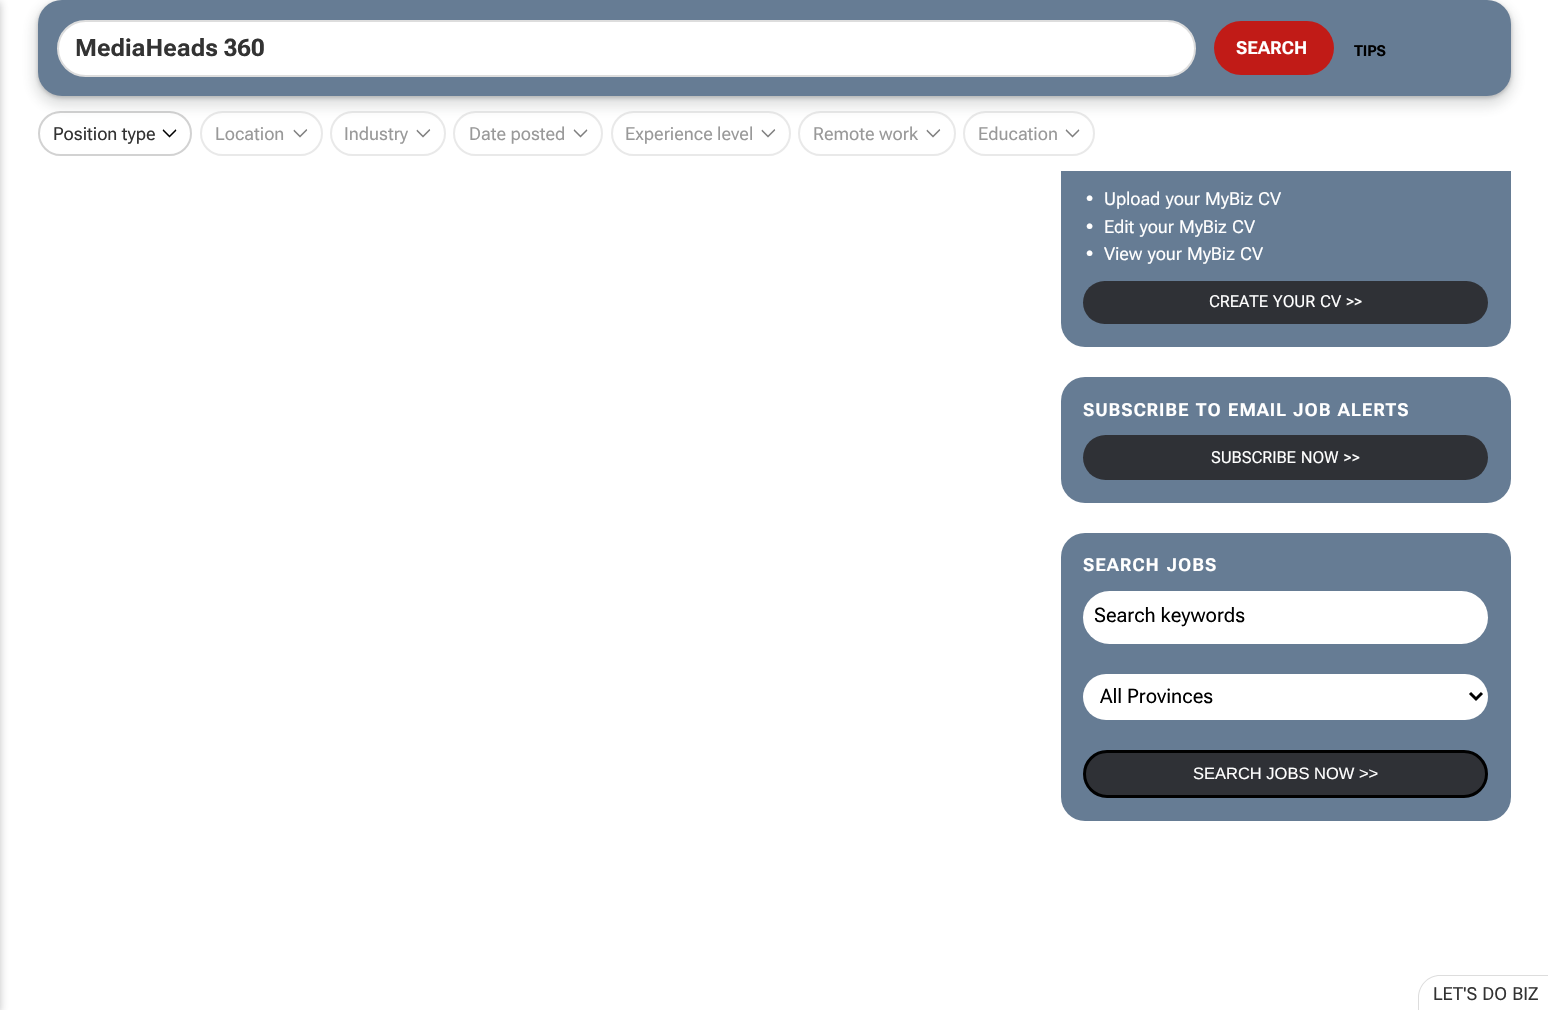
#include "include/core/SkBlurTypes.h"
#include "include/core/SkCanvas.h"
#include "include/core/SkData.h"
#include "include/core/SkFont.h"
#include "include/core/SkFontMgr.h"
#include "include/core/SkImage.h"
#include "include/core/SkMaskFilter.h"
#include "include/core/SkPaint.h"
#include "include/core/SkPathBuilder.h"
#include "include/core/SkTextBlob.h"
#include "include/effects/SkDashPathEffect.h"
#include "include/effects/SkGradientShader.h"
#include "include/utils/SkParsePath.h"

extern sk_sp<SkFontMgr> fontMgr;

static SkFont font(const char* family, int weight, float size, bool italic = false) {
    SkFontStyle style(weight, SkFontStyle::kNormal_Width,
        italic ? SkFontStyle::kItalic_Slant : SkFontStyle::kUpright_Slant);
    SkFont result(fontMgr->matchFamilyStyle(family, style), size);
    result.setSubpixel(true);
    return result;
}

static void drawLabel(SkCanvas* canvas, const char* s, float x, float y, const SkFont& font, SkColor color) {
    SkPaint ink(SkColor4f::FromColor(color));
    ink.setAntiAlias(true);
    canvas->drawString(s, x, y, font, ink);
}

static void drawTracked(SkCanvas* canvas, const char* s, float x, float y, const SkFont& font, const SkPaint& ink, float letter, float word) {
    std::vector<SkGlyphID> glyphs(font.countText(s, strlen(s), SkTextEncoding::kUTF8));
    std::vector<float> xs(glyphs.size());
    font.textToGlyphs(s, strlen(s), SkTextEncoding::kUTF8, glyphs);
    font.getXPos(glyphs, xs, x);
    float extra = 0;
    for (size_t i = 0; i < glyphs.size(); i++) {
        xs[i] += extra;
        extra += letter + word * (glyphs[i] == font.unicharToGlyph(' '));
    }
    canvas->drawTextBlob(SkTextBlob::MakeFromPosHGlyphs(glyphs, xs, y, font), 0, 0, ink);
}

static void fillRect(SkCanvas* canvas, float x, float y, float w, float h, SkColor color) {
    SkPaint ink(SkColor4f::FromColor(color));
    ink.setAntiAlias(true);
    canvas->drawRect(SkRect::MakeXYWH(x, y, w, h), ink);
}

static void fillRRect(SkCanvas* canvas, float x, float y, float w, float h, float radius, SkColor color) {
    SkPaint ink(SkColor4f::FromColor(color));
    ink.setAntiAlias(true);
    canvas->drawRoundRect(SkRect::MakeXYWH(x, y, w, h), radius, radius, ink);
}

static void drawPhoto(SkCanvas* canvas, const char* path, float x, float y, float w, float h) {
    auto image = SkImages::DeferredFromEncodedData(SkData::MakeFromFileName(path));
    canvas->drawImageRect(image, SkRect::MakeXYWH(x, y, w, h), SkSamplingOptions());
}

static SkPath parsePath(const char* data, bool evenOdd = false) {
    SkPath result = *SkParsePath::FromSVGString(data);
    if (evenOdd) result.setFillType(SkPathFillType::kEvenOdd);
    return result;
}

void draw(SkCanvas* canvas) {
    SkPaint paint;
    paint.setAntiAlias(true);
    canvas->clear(0xFFFFFFFF);
    paint.setColor(0x47202124);
    paint.setMaskFilter(SkMaskFilter::MakeBlur(kNormal_SkBlurStyle, 4.5f));
    canvas->drawRect(SkRect::MakeXYWH(-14, 2, 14, 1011), paint);
    paint.setMaskFilter(nullptr);
    paint.setStroke(true);
    paint.setStrokeWidth(2);
    paint.setColor(0xFFD2D2D2);
    canvas->drawRoundRect(SkRect::MakeXYWH(39, 112, 152, 43), 21.5f, 21.5f, paint);
    paint.setColor(0xFFE9E9E9);
    canvas->drawRoundRect(SkRect::MakeXYWH(201, 112, 121, 43), 21.5f, 21.5f, paint);
    canvas->drawRoundRect(SkRect::MakeXYWH(331, 112, 114, 43), 21.5f, 21.5f, paint);
    canvas->drawRoundRect(SkRect::MakeXYWH(454, 112, 148, 43), 21.5f, 21.5f, paint);
    canvas->drawRoundRect(SkRect::MakeXYWH(612, 112, 178, 43), 21.5f, 21.5f, paint);
    canvas->drawRoundRect(SkRect::MakeXYWH(799, 112, 156, 43), 21.5f, 21.5f, paint);
    fillRRect(canvas, 1061, 126, 450, 221, 24, 0xFF667C94);
    fillRect(canvas, 1061, 126, 450, 45, 0xFFFFFFFF);
    canvas->drawRoundRect(SkRect::MakeXYWH(964, 112, 130, 43), 21.5f, 21.5f, paint);
    paint.setStroke(false);
    paint.setColor(0x263C4043);
    paint.setMaskFilter(SkMaskFilter::MakeBlur(kNormal_SkBlurStyle, 6));
    canvas->drawRoundRect(SkRect::MakeXYWH(33, 2, 1482, 105), 29, 29, paint);
    paint.setMaskFilter(nullptr);
    paint.setColor(0x4D3C4043);
    paint.setMaskFilter(SkMaskFilter::MakeBlur(kNormal_SkBlurStyle, 2));
    canvas->drawRoundRect(SkRect::MakeXYWH(38, 2, 1473, 96), 24, 24, paint);
    paint.setMaskFilter(nullptr);
    fillRRect(canvas, 38, 0, 1473, 96, 24, 0xFF667C94);
    paint.setColor(0xFFFFFFFF);
    canvas->drawRoundRect(SkRect::MakeXYWH(58, 21, 1137, 55), 27.5f, 27.5f, paint);
    paint.setStroke(true);
    paint.setColor(0xFFDDDDDD);
    canvas->drawRoundRect(SkRect::MakeXYWH(58, 21, 1137, 55), 27.5f, 27.5f, paint);
    SkFont font1 = font("Roboto Flex", 700, 24);
    drawLabel(canvas, "MediaHeads 360", 75, 56, font1, 0xFF333333);
    fillRRect(canvas, 1214, 21, 120, 54, 27, 0xFFC11B17);
    SkFont font2 = font("Roboto Flex", 700, 18);
    drawLabel(canvas, "SEARCH", 1236, 54, font2, 0xFFFFFFFF);
    SkFont font3 = font("Roboto Flex", 700, 15);
    paint.setStroke(false);
    paint.setColor(0xFF000000);
    drawTracked(canvas, "TIPS", 1354, 56, font3, paint, -0.1f, 0);
    SkFont font4 = font("Roboto Flex", 400, 18);
    drawLabel(canvas, "Position type", 53, 140, font4, 0xFF333333);
    drawPhoto(canvas, "assets/img1.png", 162, 129, 15, 9);
    drawLabel(canvas, "Location", 215, 140, font4, 0xFF999999);
    drawPhoto(canvas, "assets/img2.png", 293, 129, 15, 9);
    drawLabel(canvas, "Industry", 344, 140, font4, 0xFF999999);
    drawPhoto(canvas, "assets/img2.png", 416, 129, 15, 9);
    drawLabel(canvas, "Date posted", 469, 140, font4, 0xFF999999);
    drawPhoto(canvas, "assets/img3.png", 573, 129, 15, 9);
    drawLabel(canvas, "Experience level", 625, 140, font4, 0xFF999999);
    drawPhoto(canvas, "assets/img2.png", 761, 129, 15, 9);
    drawLabel(canvas, "Remote work", 813, 140, font4, 0xFF999999);
    drawPhoto(canvas, "assets/img2.png", 926, 129, 15, 9);
    drawLabel(canvas, "Education", 978, 140, font4, 0xFF999999);
    drawPhoto(canvas, "assets/img3.png", 1065, 129, 15, 9);
    paint.setColor(0xFFFFFFFF);
    drawTracked(canvas, "•", 1086, 205, font2, paint, -0.1f, 0);
    drawTracked(canvas, "Upload your MyBiz CV", 1104, 205, font4, paint, -0.1f, 1);
    drawTracked(canvas, "•", 1086, 233, font2, paint, -0.1f, 0);
    drawTracked(canvas, "Edit your MyBiz CV", 1104, 233, font4, paint, -0.1f, 1);
    drawTracked(canvas, "•", 1086, 260, font2, paint, -0.1f, 0);
    drawTracked(canvas, "View your MyBiz CV", 1104, 260, font4, paint, -0.1f, 1);
    fillRRect(canvas, 1083, 281, 405, 43, 21.5f, 0xFF2F3136);
    SkFont font5 = font("Roboto Flex", 400, 16.5f);
    drawTracked(canvas, "CREATE YOUR CV >>", 1209, 307, font5, paint, -0.1f, 1);
    fillRRect(canvas, 1061, 377, 450, 126, 24, 0xFF667C94);
    drawTracked(canvas, "SUBSCRIBE TO EMAIL JOB ALERTS", 1083, 416, font2, paint, 0.9f, 1);
    fillRRect(canvas, 1083, 435, 405, 45, 22.5f, 0xFF2F3136);
    drawTracked(canvas, "SUBSCRIBE NOW >>", 1211, 463, font5, paint, -0.1f, 1);
    fillRRect(canvas, 1061, 533, 450, 288, 24, 0xFF667C94);
    drawTracked(canvas, "SEARCH JOBS", 1083, 571, font2, paint, 0.9f, 2);
    fillRRect(canvas, 1083, 591, 405, 53, 26.5f, 0xFFFFFFFF);
    SkFont font6 = font("Roboto Flex", 400, 20);
    drawLabel(canvas, "Search keywords", 1094, 622, font6, 0xFF000000);
    fillRRect(canvas, 1083, 674, 405, 46, 23, 0xFFFFFFFF);
    paint.setStroke(true);
    paint.setStrokeWidth(3);
    paint.setColor(0xFF000000);
    canvas->drawPath(parsePath("M1470 693L1476 699L1482 693"), paint);
    drawLabel(canvas, "All Provinces", 1100, 703, font6, 0xFF000000);
    paint.setStroke(false);
    paint.setColor(0xFF2F3136);
    canvas->drawRoundRect(SkRect::MakeXYWH(1084.5f, 751.5f, 402, 45), 22.5f, 22.5f, paint);
    paint.setStroke(true);
    paint.setColor(0xFF000000);
    canvas->drawRoundRect(SkRect::MakeXYWH(1084.5f, 751.5f, 402, 45), 22.5f, 22.5f, paint);
    SkFont font7 = font("Liberation Sans", 400, 16.5f);
    drawLabel(canvas, "SEARCH JOBS NOW >>", 1193, 779, font7, 0xFFFFFFFF);
    paint.setStroke(false);
    paint.setColor(0xFFDDDDDD);
    canvas->drawPath(parsePath("M1440 975H1548V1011H1418V998C1418 985 1428 975 1440 975ZM1440 976H1548V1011H1419V998C1419 986 1428 976 1440 976Z", true), paint);
    paint.setColor(0xFF333333);
    drawTracked(canvas, "LET'S DO BIZ", 1433, 1000, font4, paint, -0.1f, 1);
}
